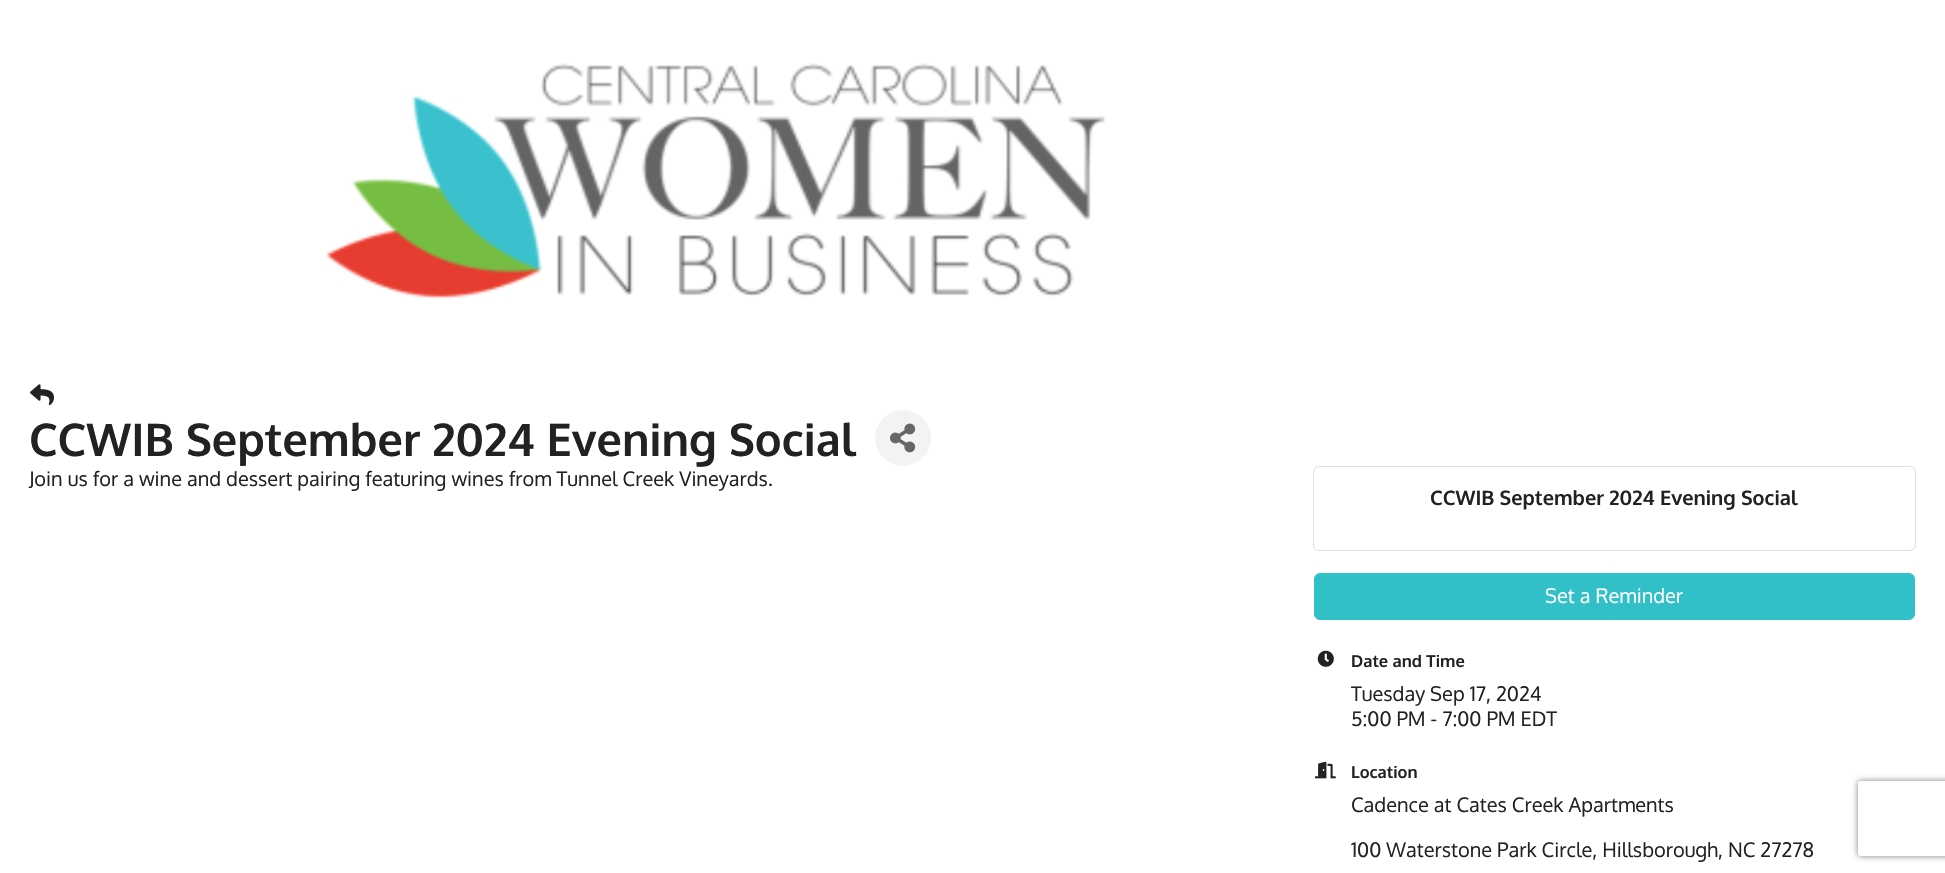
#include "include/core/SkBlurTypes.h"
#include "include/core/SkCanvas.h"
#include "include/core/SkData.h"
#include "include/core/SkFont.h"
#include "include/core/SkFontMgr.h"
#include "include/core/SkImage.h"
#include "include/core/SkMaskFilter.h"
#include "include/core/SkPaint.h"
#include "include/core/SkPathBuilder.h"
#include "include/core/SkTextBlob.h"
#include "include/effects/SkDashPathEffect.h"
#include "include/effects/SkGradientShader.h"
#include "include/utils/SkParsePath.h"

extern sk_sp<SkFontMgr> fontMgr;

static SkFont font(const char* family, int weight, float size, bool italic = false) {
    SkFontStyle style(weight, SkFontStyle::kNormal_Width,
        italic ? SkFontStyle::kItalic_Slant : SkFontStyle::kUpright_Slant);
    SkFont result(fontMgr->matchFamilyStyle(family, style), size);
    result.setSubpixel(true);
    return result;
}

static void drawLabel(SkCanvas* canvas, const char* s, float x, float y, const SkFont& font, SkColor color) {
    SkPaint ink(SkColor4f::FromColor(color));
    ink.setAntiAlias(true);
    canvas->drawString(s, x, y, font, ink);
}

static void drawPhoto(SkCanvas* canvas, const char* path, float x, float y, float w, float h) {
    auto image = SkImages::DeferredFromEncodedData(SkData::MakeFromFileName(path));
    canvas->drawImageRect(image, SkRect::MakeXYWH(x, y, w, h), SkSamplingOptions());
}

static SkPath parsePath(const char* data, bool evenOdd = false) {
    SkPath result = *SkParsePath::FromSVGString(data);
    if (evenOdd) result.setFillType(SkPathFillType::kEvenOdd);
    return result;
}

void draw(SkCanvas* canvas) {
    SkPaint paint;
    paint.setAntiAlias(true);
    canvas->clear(0xFFFFFFFF);
    drawPhoto(canvas, "assets/img1.png", 326, 63, 779, 236);
    drawPhoto(canvas, "assets/img2.png", 30, 384, 24, 22);
    SkFont font1 = font("Oxygen", 700, 45);
    drawLabel(canvas, "CCWIB September 2024 Evening Social", 29, 456, font1, 0xFF222222);
    paint.setColor(0xFFF3F3F3);
    canvas->drawCircle(903, 438, 28, paint);
    drawPhoto(canvas, "assets/img3.png", 890, 423, 26, 30);
    SkFont font2 = font("Oxygen", 400, 20);
    drawLabel(canvas, "Join us for a wine and dessert pairing featuring wines from Tunnel Creek Vineyards.", 29, 486, font2, 0xFF222222);
    paint.setStroke(true);
    paint.setStrokeWidth(1);
    paint.setColor(0xFFDFDFDF);
    canvas->drawRoundRect(SkRect::MakeXYWH(1313.5f, 466.5f, 602, 84), 5.5f, 5.5f, paint);
    SkFont font3 = font("Oxygen", 700, 20);
    drawLabel(canvas, "CCWIB September 2024 Evening Social", 1430, 505, font3, 0xFF222222);
    paint.setStroke(false);
    paint.setColor(0xFF32C0C8);
    canvas->drawRoundRect(SkRect::MakeXYWH(1314.5f, 573.5f, 600, 46), 5.5f, 5.5f, paint);
    paint.setStroke(true);
    canvas->drawRoundRect(SkRect::MakeXYWH(1314.5f, 573.5f, 600, 46), 5.5f, 5.5f, paint);
    drawLabel(canvas, "Set a Reminder", 1545, 603, font2, 0xFFFFFFFF);
    drawPhoto(canvas, "assets/img4.png", 1317, 650, 17, 17);
    SkFont font4 = font("Oxygen", 700, 16.5f);
    drawLabel(canvas, "Date and Time", 1351, 667, font4, 0xFF222222);
    drawLabel(canvas, "Tuesday Sep 17, 2024", 1351, 701, font2, 0xFF222222);
    drawLabel(canvas, "5:00 PM - 7:00 PM EDT", 1351, 726, font2, 0xFF222222);
    drawPhoto(canvas, "assets/img5.png", 1315, 761, 21, 18);
    drawLabel(canvas, "Location", 1351, 778, font4, 0xFF222222);
    drawLabel(canvas, "Cadence at Cates Creek Apartments", 1351, 812, font2, 0xFF222222);
    drawLabel(canvas, "100 Waterstone Park Circle, Hillsborough, NC 27278", 1351, 857, font2, 0xFF222222);
    canvas->save();
    canvas->clipPath(parsePath("M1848 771H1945V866H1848ZM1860.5 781H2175.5C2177 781 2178 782 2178 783.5V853.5C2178 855 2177 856 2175.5 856H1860.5C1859 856 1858 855 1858 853.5V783.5C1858 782 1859 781 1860.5 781Z", true), true);
    paint.setStroke(false);
    paint.setColor(0xFF808080);
    paint.setMaskFilter(SkMaskFilter::MakeBlur(kNormal_SkBlurStyle, 3));
    canvas->drawRoundRect(SkRect::MakeXYWH(1858, 781, 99, 75), 2.5f, 2.5f, paint);
    paint.setMaskFilter(nullptr);
    canvas->restore();
}
